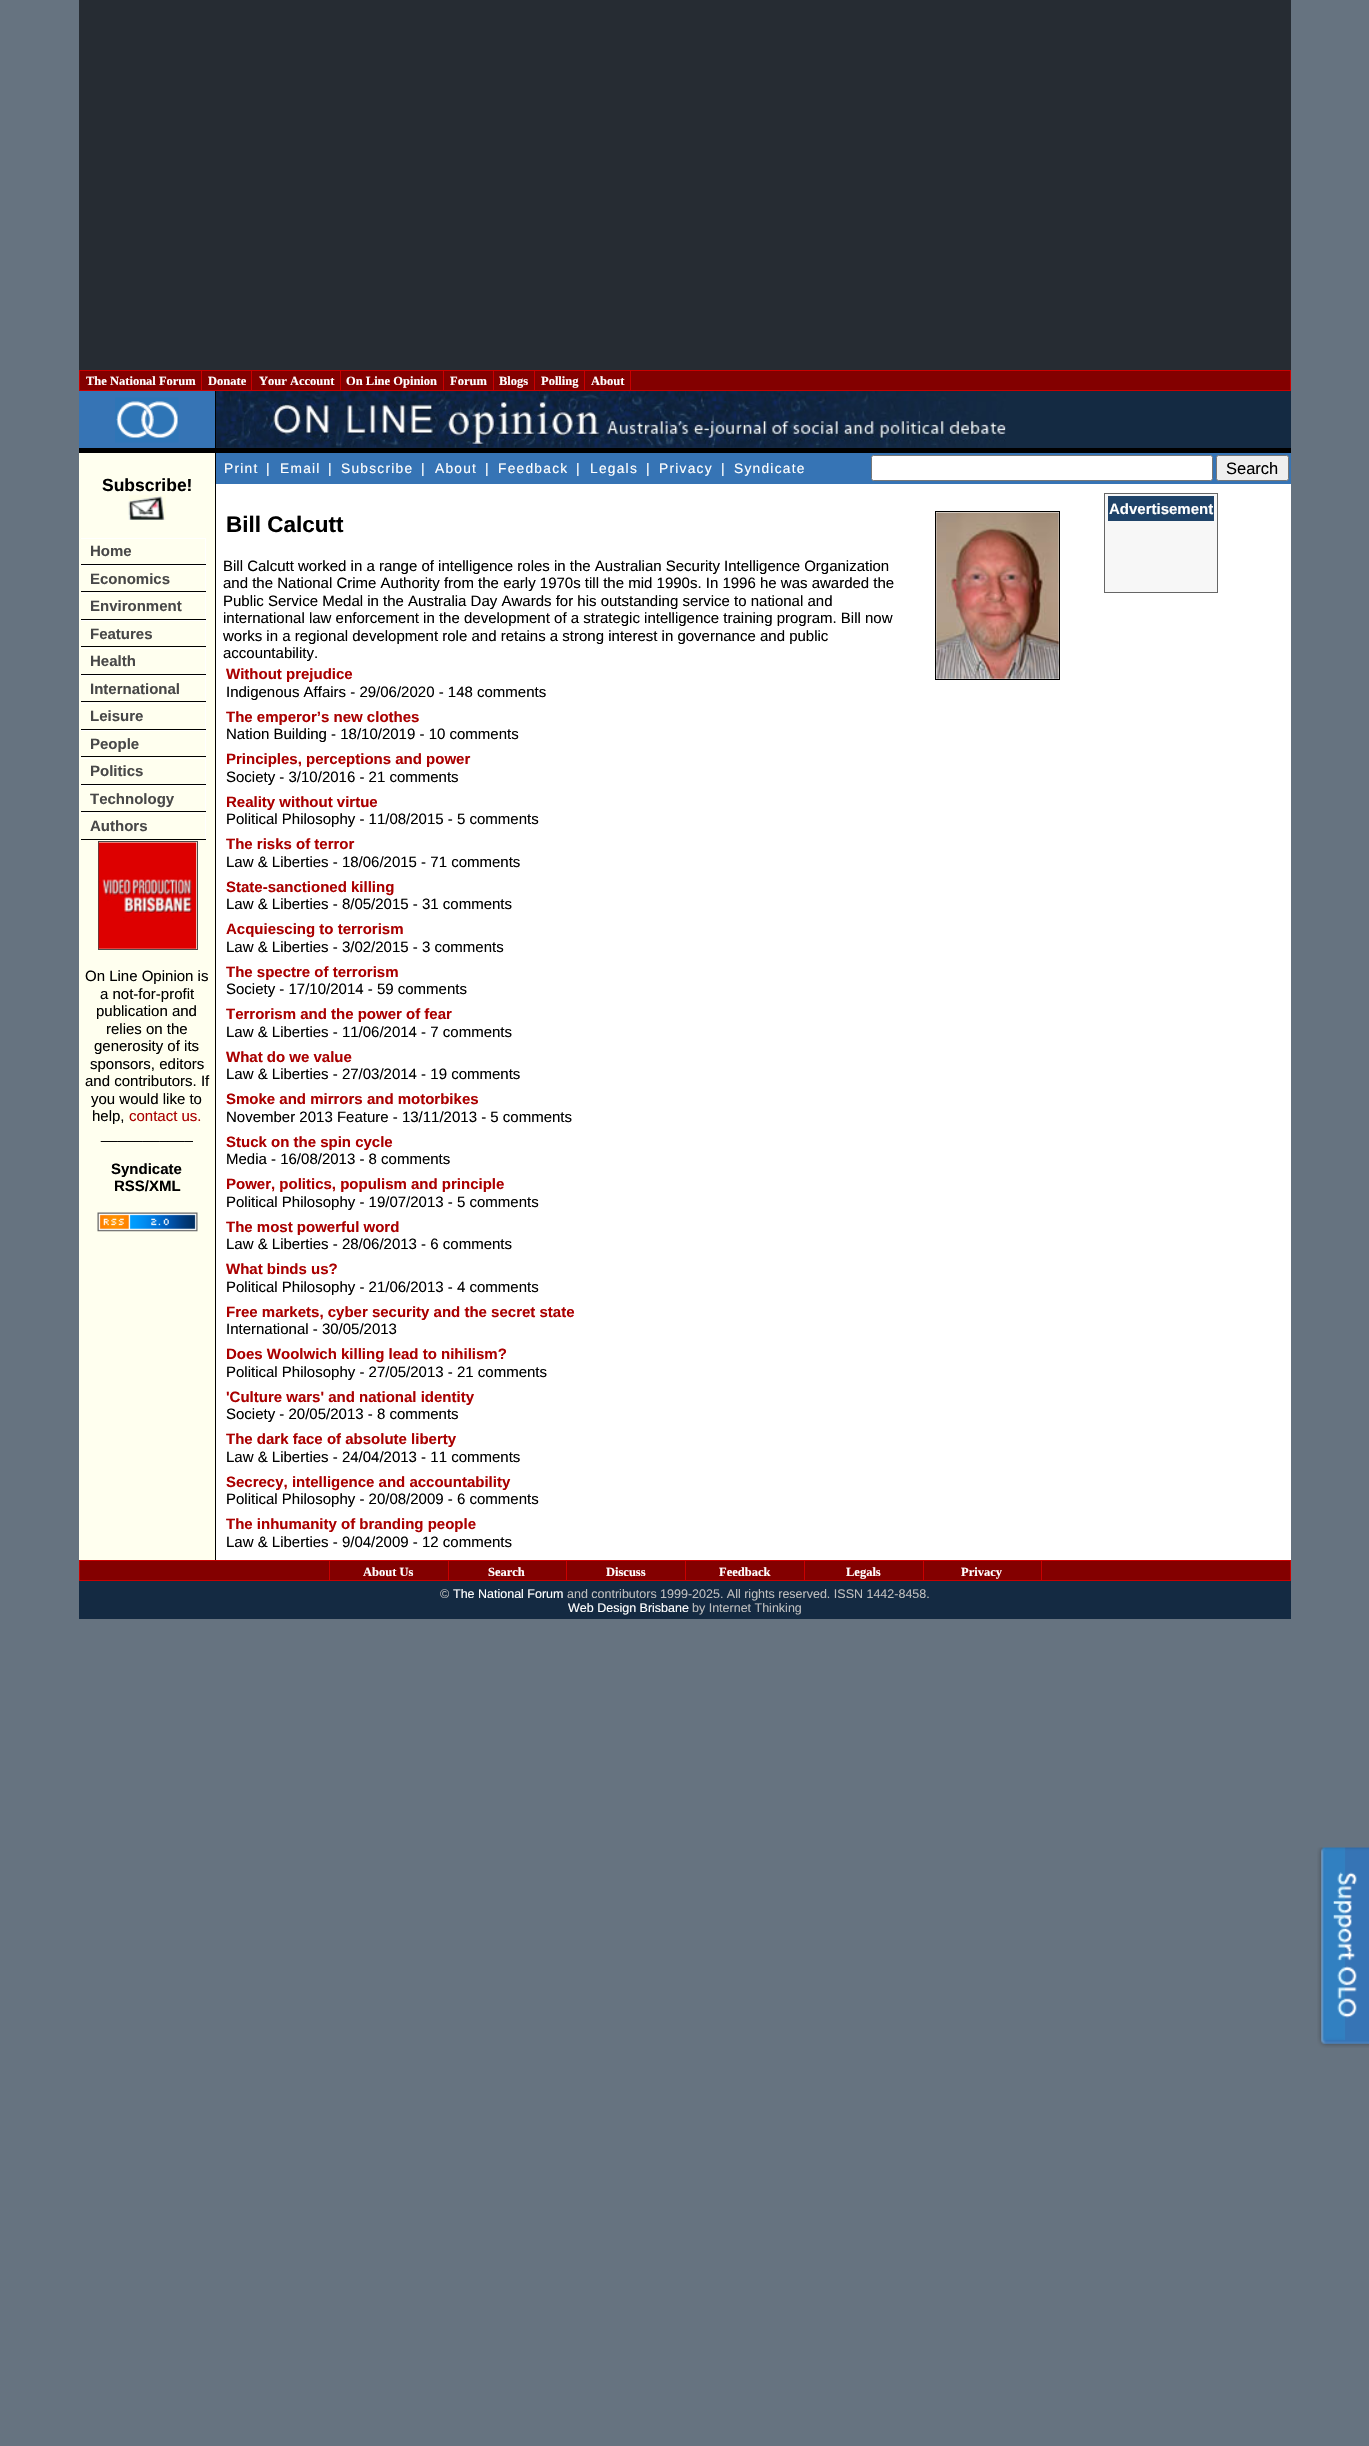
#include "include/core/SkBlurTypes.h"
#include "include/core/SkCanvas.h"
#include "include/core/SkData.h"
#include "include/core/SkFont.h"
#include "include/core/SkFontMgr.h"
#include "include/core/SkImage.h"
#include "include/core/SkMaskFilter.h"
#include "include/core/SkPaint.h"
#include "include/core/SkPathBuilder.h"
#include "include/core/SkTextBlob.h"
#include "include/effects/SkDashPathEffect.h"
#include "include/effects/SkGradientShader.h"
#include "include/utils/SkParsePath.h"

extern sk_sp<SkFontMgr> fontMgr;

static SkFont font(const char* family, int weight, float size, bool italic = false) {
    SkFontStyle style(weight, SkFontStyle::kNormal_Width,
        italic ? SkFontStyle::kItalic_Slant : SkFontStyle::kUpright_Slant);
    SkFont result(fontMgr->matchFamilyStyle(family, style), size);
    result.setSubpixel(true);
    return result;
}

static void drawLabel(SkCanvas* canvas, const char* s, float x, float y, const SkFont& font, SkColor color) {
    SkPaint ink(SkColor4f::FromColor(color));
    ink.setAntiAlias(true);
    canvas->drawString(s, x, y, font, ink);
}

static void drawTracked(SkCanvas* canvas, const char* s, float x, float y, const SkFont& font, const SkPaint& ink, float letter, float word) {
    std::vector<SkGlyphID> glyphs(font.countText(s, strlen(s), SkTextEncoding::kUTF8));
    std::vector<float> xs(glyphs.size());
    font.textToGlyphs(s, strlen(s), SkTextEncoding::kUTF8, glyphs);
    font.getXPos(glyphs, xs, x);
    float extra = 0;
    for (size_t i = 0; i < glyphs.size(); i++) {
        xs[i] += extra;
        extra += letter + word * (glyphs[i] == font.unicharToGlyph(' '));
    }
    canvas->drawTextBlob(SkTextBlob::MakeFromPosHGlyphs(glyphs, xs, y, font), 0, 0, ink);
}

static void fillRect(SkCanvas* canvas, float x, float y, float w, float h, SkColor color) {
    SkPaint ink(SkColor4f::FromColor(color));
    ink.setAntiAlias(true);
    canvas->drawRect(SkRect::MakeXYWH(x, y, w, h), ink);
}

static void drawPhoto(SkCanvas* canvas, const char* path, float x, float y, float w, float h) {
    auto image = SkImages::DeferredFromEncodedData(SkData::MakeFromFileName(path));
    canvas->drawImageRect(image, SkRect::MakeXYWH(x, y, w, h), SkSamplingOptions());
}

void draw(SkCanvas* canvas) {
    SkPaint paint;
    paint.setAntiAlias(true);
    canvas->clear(0xFF667380);
    fillRect(canvas, 216, 484, 1075, 1076, 0xFFFFFFFF);
    fillRect(canvas, 79, 0, 1212, 370, 0xFF262C33);
    fillRect(canvas, 80, 371, 1210, 19, 0xFF830000);
    fillRect(canvas, 79, 370, 1212, 1, 0xFFCA0000);
    fillRect(canvas, 1290, 370, 1, 21, 0xFFCA0000);
    fillRect(canvas, 79, 390, 1212, 1, 0xFFCA0000);
    fillRect(canvas, 79, 370, 1, 21, 0xFFCA0000);
    SkFont font1 = font("Liberation Serif", 700, 12.5f);
    drawLabel(canvas, "The National Forum", 86, 385, font1, 0xFFFFFFFF);
    fillRect(canvas, 201, 370, 1, 21, 0xFFCA0000);
    drawLabel(canvas, "Donate", 208, 385, font1, 0xFFFFFFFF);
    fillRect(canvas, 251, 370, 1, 21, 0xFFCA0000);
    drawLabel(canvas, "Your Account", 259, 385, font1, 0xFFFFFFFF);
    fillRect(canvas, 340, 370, 1, 21, 0xFFCA0000);
    drawLabel(canvas, "On Line Opinion", 346, 385, font1, 0xFFFFFFFF);
    fillRect(canvas, 443, 370, 1, 21, 0xFFCA0000);
    drawLabel(canvas, "Forum", 450, 385, font1, 0xFFFFFFFF);
    fillRect(canvas, 493, 370, 1, 21, 0xFFCA0000);
    drawLabel(canvas, "Blogs", 499, 385, font1, 0xFFFFFFFF);
    fillRect(canvas, 534, 370, 1, 21, 0xFFCA0000);
    drawLabel(canvas, "Polling", 541, 385, font1, 0xFFFFFFFF);
    fillRect(canvas, 584, 370, 1, 21, 0xFFCA0000);
    drawLabel(canvas, "About", 591, 385, font1, 0xFFFFFFFF);
    fillRect(canvas, 630, 370, 1, 21, 0xFFCA0000);
    fillRect(canvas, 79, 391, 136, 57, 0xFF3674B5);
    fillRect(canvas, 215, 391, 1, 1169, 0xFF000000);
    fillRect(canvas, 79, 448, 1212, 5, 0xFF000000);
    drawPhoto(canvas, "assets/img1.png", 115, 397, 64, 46);
    fillRect(canvas, 216, 391, 1075, 57, 0xFF142A42);
    drawPhoto(canvas, "assets/img2.png", 216, 391, 790, 57);
    fillRect(canvas, 79, 453, 136, 1107, 0xFFFFFFEF);
    SkFont font2 = font("Liberation Sans", 700, 17.5f);
    drawLabel(canvas, "Subscribe!", 102, 491, font2, 0xFF000000);
    drawPhoto(canvas, "assets/img3.png", 128, 495, 38, 25);
    fillRect(canvas, 81, 564, 125, 1, 0xFF000000);
    fillRect(canvas, 81, 538, 125, 1, 0xFFFFFFFF);
    fillRect(canvas, 205, 538, 1, 26, 0xFFFFFFFF);
    SkFont font3 = font("Liberation Sans", 700, 15);
    drawLabel(canvas, "Home", 90, 556, font3, 0xFF484848);
    fillRect(canvas, 81, 591, 125, 1, 0xFF000000);
    fillRect(canvas, 81, 565, 125, 1, 0xFFFFFFFF);
    fillRect(canvas, 205, 565, 1, 26, 0xFFFFFFFF);
    drawLabel(canvas, "Economics", 90, 584, font3, 0xFF484848);
    fillRect(canvas, 81, 619, 125, 1, 0xFF000000);
    fillRect(canvas, 81, 593, 125, 1, 0xFFFFFFFF);
    fillRect(canvas, 205, 593, 1, 26, 0xFFFFFFFF);
    drawLabel(canvas, "Environment", 90, 611, font3, 0xFF484848);
    fillRect(canvas, 81, 646, 125, 1, 0xFF000000);
    fillRect(canvas, 81, 620, 125, 1, 0xFFFFFFFF);
    fillRect(canvas, 205, 620, 1, 26, 0xFFFFFFFF);
    drawLabel(canvas, "Features", 90, 639, font3, 0xFF484848);
    fillRect(canvas, 81, 674, 125, 1, 0xFF000000);
    fillRect(canvas, 81, 648, 125, 1, 0xFFFFFFFF);
    fillRect(canvas, 205, 648, 1, 26, 0xFFFFFFFF);
    drawLabel(canvas, "Health", 90, 666, font3, 0xFF484848);
    fillRect(canvas, 81, 701, 125, 1, 0xFF000000);
    fillRect(canvas, 81, 675, 125, 1, 0xFFFFFFFF);
    fillRect(canvas, 205, 675, 1, 26, 0xFFFFFFFF);
    drawLabel(canvas, "International", 90, 694, font3, 0xFF484848);
    fillRect(canvas, 81, 729, 125, 1, 0xFF000000);
    fillRect(canvas, 81, 703, 125, 1, 0xFFFFFFFF);
    fillRect(canvas, 205, 703, 1, 26, 0xFFFFFFFF);
    drawLabel(canvas, "Leisure", 90, 721, font3, 0xFF484848);
    fillRect(canvas, 81, 756, 125, 1, 0xFF000000);
    fillRect(canvas, 81, 730, 125, 1, 0xFFFFFFFF);
    fillRect(canvas, 205, 730, 1, 26, 0xFFFFFFFF);
    drawLabel(canvas, "People", 90, 749, font3, 0xFF484848);
    fillRect(canvas, 81, 784, 125, 1, 0xFF000000);
    fillRect(canvas, 81, 758, 125, 1, 0xFFFFFFFF);
    fillRect(canvas, 205, 758, 1, 26, 0xFFFFFFFF);
    drawLabel(canvas, "Politics", 90, 776, font3, 0xFF484848);
    fillRect(canvas, 81, 811, 125, 1, 0xFF000000);
    fillRect(canvas, 81, 785, 125, 1, 0xFFFFFFFF);
    fillRect(canvas, 205, 785, 1, 26, 0xFFFFFFFF);
    drawLabel(canvas, "Technology", 90, 804, font3, 0xFF484848);
    fillRect(canvas, 81, 839, 125, 1, 0xFF000000);
    fillRect(canvas, 81, 813, 125, 1, 0xFFFFFFFF);
    fillRect(canvas, 205, 813, 1, 26, 0xFFFFFFFF);
    drawLabel(canvas, "Authors", 90, 831, font3, 0xFF484848);
    paint.setStroke(true);
    paint.setStrokeWidth(1);
    paint.setColor(0xFF4B4B4B);
    canvas->drawRect(SkRect::MakeXYWH(98.5f, 841.5f, 99, 108), paint);
    drawPhoto(canvas, "assets/img4.png", 98, 842, 99, 107);
    SkFont font4 = font("Liberation Sans", 400, 15);
    drawLabel(canvas, "On Line Opinion is", 85, 981, font4, 0xFF000000);
    drawLabel(canvas, "a not-for-profit", 100, 999, font4, 0xFF000000);
    drawLabel(canvas, "publication and", 96, 1016, font4, 0xFF000000);
    drawLabel(canvas, "relies on the", 106, 1034, font4, 0xFF000000);
    drawLabel(canvas, "generosity of its", 94, 1051, font4, 0xFF000000);
    drawLabel(canvas, "sponsors, editors", 90, 1069, font4, 0xFF000000);
    drawLabel(canvas, "and contributors. If", 85, 1086, font4, 0xFF000000);
    drawLabel(canvas, "you would like to", 91, 1104, font4, 0xFF000000);
    drawLabel(canvas, "help,", 92, 1121, font4, 0xFF000000);
    drawLabel(canvas, "contact us.", 129, 1121, font4, 0xFFAA0000);
    drawLabel(canvas, "___________", 101, 1139, font4, 0xFF000000);
    drawLabel(canvas, "Syndicate", 111, 1174, font3, 0xFF000000);
    drawLabel(canvas, "RSS/XML", 114, 1191, font3, 0xFF000000);
    drawPhoto(canvas, "assets/img5.png", 97, 1212, 101, 20);
    fillRect(canvas, 216, 453, 1075, 31, 0xFF3674B5);
    SkFont font5 = font("Liberation Sans", 400, 13.75f);
    paint.setStroke(false);
    paint.setColor(0xFFFFFFFF);
    drawTracked(canvas, "Print", 224, 473, font5, paint, 1.25f, 0);
    drawTracked(canvas, "|", 266, 473, font5, paint, 1.25f, 0);
    drawTracked(canvas, "Email", 280, 473, font5, paint, 1.25f, 0);
    drawTracked(canvas, "|", 328, 473, font5, paint, 1.25f, 0);
    drawTracked(canvas, "Subscribe", 341, 473, font5, paint, 1.25f, 0);
    drawTracked(canvas, "|", 421, 473, font5, paint, 1.25f, 0);
    drawTracked(canvas, "About", 435, 473, font5, paint, 1.25f, 0);
    drawTracked(canvas, "|", 485, 473, font5, paint, 1.25f, 0);
    drawTracked(canvas, "Feedback", 498, 473, font5, paint, 1.25f, 0);
    drawTracked(canvas, "|", 576, 473, font5, paint, 1.25f, 0);
    drawTracked(canvas, "Legals", 590, 473, font5, paint, 1.25f, 0);
    drawTracked(canvas, "|", 646, 473, font5, paint, 1.25f, 0);
    drawTracked(canvas, "Privacy", 659, 473, font5, paint, 1.25f, 0);
    drawTracked(canvas, "|", 721, 473, font5, paint, 1.25f, 0);
    drawTracked(canvas, "Syndicate", 734, 473, font5, paint, 1.25f, 0);
    canvas->drawRoundRect(SkRect::MakeXYWH(871.5f, 455.5f, 341, 25), 2, 2, paint);
    paint.setStroke(true);
    paint.setColor(0xFF767676);
    canvas->drawRoundRect(SkRect::MakeXYWH(871.5f, 455.5f, 341, 25), 2, 2, paint);
    paint.setStroke(false);
    paint.setColor(0xFFEFEFEF);
    canvas->drawRoundRect(SkRect::MakeXYWH(1216.5f, 455.5f, 72, 25), 2, 2, paint);
    paint.setStroke(true);
    paint.setColor(0xFF767676);
    canvas->drawRoundRect(SkRect::MakeXYWH(1216.5f, 455.5f, 72, 25), 2, 2, paint);
    SkFont font6 = font("Liberation Sans", 400, 16.5f);
    drawLabel(canvas, "Search", 1226, 474, font6, 0xFF000000);
    paint.setStroke(false);
    paint.setColor(0xFFF7F7F7);
    canvas->drawRect(SkRect::MakeXYWH(1104.5f, 493.5f, 113, 99), paint);
    paint.setStroke(true);
    paint.setColor(0xFF666666);
    canvas->drawRect(SkRect::MakeXYWH(1104.5f, 493.5f, 113, 99), paint);
    fillRect(canvas, 1108, 496, 106, 25, 0xFF1F4369);
    drawLabel(canvas, "Advertisement", 1109, 514, font3, 0xFFFFFFFF);
    SkFont font7 = font("Liberation Sans", 700, 22.5f);
    drawLabel(canvas, "Bill Calcutt", 226, 532, font7, 0xFF000000);
    paint.setColor(0xFF000000);
    canvas->drawRect(SkRect::MakeXYWH(935.5f, 511.5f, 124, 168), paint);
    drawPhoto(canvas, "assets/img6.png", 936, 512, 123, 167);
    drawLabel(canvas, "Bill Calcutt worked in a range of intelligence roles in the Australian Security Intelligence Organization", 223, 571, font4, 0xFF000000);
    drawLabel(canvas, "and the National Crime Authority from the early 1970s till the mid 1990s. In 1996 he was awarded the", 223, 588, font4, 0xFF000000);
    drawLabel(canvas, "Public Service Medal in the Australia Day Awards for his outstanding service to national and", 223, 606, font4, 0xFF000000);
    drawLabel(canvas, "international law enforcement in the development of a strategic intelligence training program. Bill now", 223, 623, font4, 0xFF000000);
    drawLabel(canvas, "works in a regional development role and retains a strong interest in governance and public", 223, 641, font4, 0xFF000000);
    drawLabel(canvas, "accountability.", 223, 658, font4, 0xFF000000);
    drawLabel(canvas, "Without prejudice", 226, 679, font3, 0xFFAA0000);
    drawLabel(canvas, "Indigenous Affairs - 29/06/2020 - 148 comments", 226, 697, font4, 0xFF000000);
    drawLabel(canvas, "The emperor’s new clothes", 226, 722, font3, 0xFFAA0000);
    drawLabel(canvas, "Nation Building - 18/10/2019 - 10 comments", 226, 739, font4, 0xFF000000);
    drawLabel(canvas, "Principles, perceptions and power", 226, 764, font3, 0xFFAA0000);
    drawLabel(canvas, "Society - 3/10/2016 - 21 comments", 226, 782, font4, 0xFF000000);
    drawLabel(canvas, "Reality without virtue", 226, 807, font3, 0xFFAA0000);
    drawLabel(canvas, "Political Philosophy - 11/08/2015 - 5 comments", 226, 824, font4, 0xFF000000);
    drawLabel(canvas, "The risks of terror", 226, 849, font3, 0xFFAA0000);
    drawLabel(canvas, "Law & Liberties - 18/06/2015 - 71 comments", 226, 867, font4, 0xFF000000);
    drawLabel(canvas, "State-sanctioned killing", 226, 892, font3, 0xFFAA0000);
    drawLabel(canvas, "Law & Liberties - 8/05/2015 - 31 comments", 226, 909, font4, 0xFF000000);
    drawLabel(canvas, "Acquiescing to terrorism", 226, 934, font3, 0xFFAA0000);
    drawLabel(canvas, "Law & Liberties - 3/02/2015 - 3 comments", 226, 952, font4, 0xFF000000);
    drawLabel(canvas, "The spectre of terrorism", 226, 977, font3, 0xFFAA0000);
    drawLabel(canvas, "Society - 17/10/2014 - 59 comments", 226, 994, font4, 0xFF000000);
    drawLabel(canvas, "Terrorism and the power of fear", 226, 1019, font3, 0xFFAA0000);
    drawLabel(canvas, "Law & Liberties - 11/06/2014 - 7 comments", 226, 1037, font4, 0xFF000000);
    drawLabel(canvas, "What do we value", 226, 1062, font3, 0xFFAA0000);
    drawLabel(canvas, "Law & Liberties - 27/03/2014 - 19 comments", 226, 1079, font4, 0xFF000000);
    drawLabel(canvas, "Smoke and mirrors and motorbikes", 226, 1104, font3, 0xFFAA0000);
    drawLabel(canvas, "November 2013 Feature - 13/11/2013 - 5 comments", 226, 1122, font4, 0xFF000000);
    drawLabel(canvas, "Stuck on the spin cycle", 226, 1147, font3, 0xFFAA0000);
    drawLabel(canvas, "Media - 16/08/2013 - 8 comments", 226, 1164, font4, 0xFF000000);
    drawLabel(canvas, "Power, politics, populism and principle", 226, 1189, font3, 0xFFAA0000);
    drawLabel(canvas, "Political Philosophy - 19/07/2013 - 5 comments", 226, 1207, font4, 0xFF000000);
    drawLabel(canvas, "The most powerful word", 226, 1232, font3, 0xFFAA0000);
    drawLabel(canvas, "Law & Liberties - 28/06/2013 - 6 comments", 226, 1249, font4, 0xFF000000);
    drawLabel(canvas, "What binds us?", 226, 1274, font3, 0xFFAA0000);
    drawLabel(canvas, "Political Philosophy - 21/06/2013 - 4 comments", 226, 1292, font4, 0xFF000000);
    drawLabel(canvas, "Free markets, cyber security and the secret state", 226, 1317, font3, 0xFFAA0000);
    drawLabel(canvas, "International - 30/05/2013", 226, 1334, font4, 0xFF000000);
    drawLabel(canvas, "Does Woolwich killing lead to nihilism?", 226, 1359, font3, 0xFFAA0000);
    drawLabel(canvas, "Political Philosophy - 27/05/2013 - 21 comments", 226, 1377, font4, 0xFF000000);
    drawLabel(canvas, "'Culture wars' and national identity", 226, 1402, font3, 0xFFAA0000);
    drawLabel(canvas, "Society - 20/05/2013 - 8 comments", 226, 1419, font4, 0xFF000000);
    drawLabel(canvas, "The dark face of absolute liberty", 226, 1444, font3, 0xFFAA0000);
    drawLabel(canvas, "Law & Liberties - 24/04/2013 - 11 comments", 226, 1462, font4, 0xFF000000);
    drawLabel(canvas, "Secrecy, intelligence and accountability", 226, 1487, font3, 0xFFAA0000);
    drawLabel(canvas, "Political Philosophy - 20/08/2009 - 6 comments", 226, 1504, font4, 0xFF000000);
    drawLabel(canvas, "The inhumanity of branding people", 226, 1529, font3, 0xFFAA0000);
    drawLabel(canvas, "Law & Liberties - 9/04/2009 - 12 comments", 226, 1547, font4, 0xFF000000);
    fillRect(canvas, 80, 1561, 1210, 19, 0xFF830000);
    fillRect(canvas, 79, 1560, 1212, 1, 0xFFCA0000);
    fillRect(canvas, 1290, 1560, 1, 21, 0xFFCA0000);
    fillRect(canvas, 79, 1580, 1212, 1, 0xFFCA0000);
    fillRect(canvas, 79, 1560, 1, 21, 0xFFCA0000);
    fillRect(canvas, 329, 1560, 1, 21, 0xFFCA0000);
    drawLabel(canvas, "About Us", 363, 1576, font1, 0xFFFFFFFF);
    fillRect(canvas, 448, 1560, 1, 21, 0xFFCA0000);
    drawLabel(canvas, "Search", 488, 1576, font1, 0xFFFFFFFF);
    fillRect(canvas, 566, 1560, 1, 21, 0xFFCA0000);
    drawLabel(canvas, "Discuss", 606, 1576, font1, 0xFFFFFFFF);
    fillRect(canvas, 685, 1560, 1, 21, 0xFFCA0000);
    drawLabel(canvas, "Feedback", 719, 1576, font1, 0xFFFFFFFF);
    fillRect(canvas, 804, 1560, 1, 21, 0xFFCA0000);
    drawLabel(canvas, "Legals", 846, 1576, font1, 0xFFFFFFFF);
    fillRect(canvas, 923, 1560, 1, 21, 0xFFCA0000);
    drawLabel(canvas, "Privacy", 961, 1576, font1, 0xFFFFFFFF);
    fillRect(canvas, 1041, 1560, 1, 21, 0xFFCA0000);
    fillRect(canvas, 79, 1581, 1212, 38, 0xFF142A42);
    SkFont font8 = font("Liberation Sans", 400, 12.5f);
    drawLabel(canvas, "©", 440, 1598, font8, 0xFFBDBDBD);
    drawLabel(canvas, "The National Forum", 453, 1598, font8, 0xFFFFFFFF);
    drawLabel(canvas, "and contributors 1999-2025. All rights reserved. ISSN 1442-8458.", 567, 1598, font8, 0xFFBDBDBD);
    drawLabel(canvas, "Web Design Brisbane", 568, 1612, font8, 0xFFFFFFFF);
    drawLabel(canvas, "by Internet Thinking", 692, 1612, font8, 0xFFBDBDBD);
    drawPhoto(canvas, "assets/img7.png", 1317, 1847, 52, 201);
}
